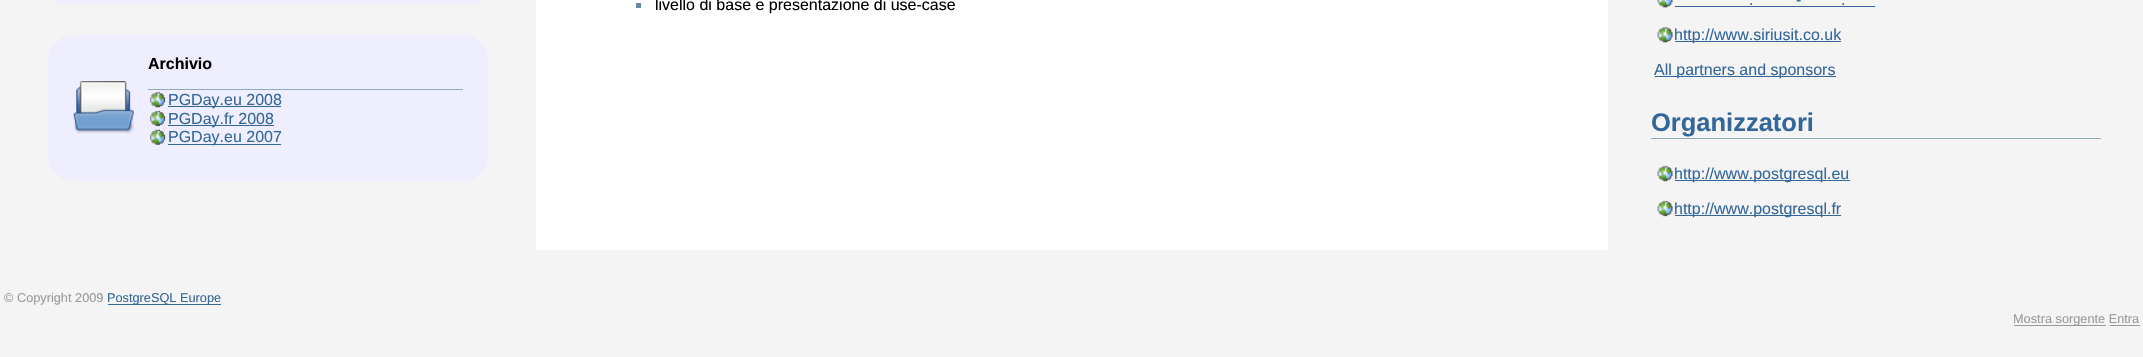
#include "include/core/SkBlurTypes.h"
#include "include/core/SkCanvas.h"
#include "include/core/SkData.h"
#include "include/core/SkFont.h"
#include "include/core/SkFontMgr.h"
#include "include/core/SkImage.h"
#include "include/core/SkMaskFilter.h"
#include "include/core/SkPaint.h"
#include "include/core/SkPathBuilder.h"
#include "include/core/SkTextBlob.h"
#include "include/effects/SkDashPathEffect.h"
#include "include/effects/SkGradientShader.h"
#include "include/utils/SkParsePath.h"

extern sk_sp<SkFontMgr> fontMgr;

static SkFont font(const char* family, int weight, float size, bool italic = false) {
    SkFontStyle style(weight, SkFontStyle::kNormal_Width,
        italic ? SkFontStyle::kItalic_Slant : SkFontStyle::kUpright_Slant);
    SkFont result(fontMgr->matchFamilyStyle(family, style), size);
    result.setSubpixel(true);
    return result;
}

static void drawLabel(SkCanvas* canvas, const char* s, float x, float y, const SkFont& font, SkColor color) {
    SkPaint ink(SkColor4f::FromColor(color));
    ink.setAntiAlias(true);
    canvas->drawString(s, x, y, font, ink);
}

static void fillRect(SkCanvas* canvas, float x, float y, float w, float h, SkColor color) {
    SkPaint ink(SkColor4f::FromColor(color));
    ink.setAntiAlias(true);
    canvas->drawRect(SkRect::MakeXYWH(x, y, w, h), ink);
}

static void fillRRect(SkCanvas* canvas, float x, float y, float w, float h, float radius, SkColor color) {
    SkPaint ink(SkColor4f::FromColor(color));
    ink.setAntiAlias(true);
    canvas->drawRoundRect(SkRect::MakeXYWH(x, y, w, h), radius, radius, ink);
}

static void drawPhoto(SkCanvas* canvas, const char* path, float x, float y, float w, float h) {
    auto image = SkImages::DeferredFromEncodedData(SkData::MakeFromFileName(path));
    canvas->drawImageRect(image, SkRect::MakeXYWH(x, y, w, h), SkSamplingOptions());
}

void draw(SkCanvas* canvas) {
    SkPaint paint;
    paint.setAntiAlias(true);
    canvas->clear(0xFFF4F4F4);
    fillRect(canvas, 536, 0, 1072, 250, 0xFFFFFFFF);
    fillRRect(canvas, 48, -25, 440, 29, 25, 0xFFEEEEFF);
    fillRRect(canvas, 48, 35, 440, 146, 25, 0xFFEEEEFF);
    drawPhoto(canvas, "assets/img1.png", 73, 81, 61, 53);
    SkFont font1 = font("Liberation Sans", 700, 16);
    drawLabel(canvas, "Archivio", 148, 69, font1, 0xFF000000);
    fillRect(canvas, 148, 89, 315, 1, 0xFF8CACBB);
    drawPhoto(canvas, "assets/img2.png", 149, 92, 17, 16);
    fillRect(canvas, 168, 106, 113, 1, 0xFF336699);
    SkFont font2 = font("Liberation Sans", 400, 16);
    drawLabel(canvas, "PGDay.eu 2008", 168, 105, font2, 0xFF336699);
    drawPhoto(canvas, "assets/img3.png", 149, 110, 17, 17);
    fillRect(canvas, 168, 125, 106, 1, 0xFF336699);
    drawLabel(canvas, "PGDay.fr 2008", 168, 124, font2, 0xFF336699);
    drawPhoto(canvas, "assets/img4.png", 149, 129, 17, 16);
    fillRect(canvas, 168, 144, 113, 1, 0xFF336699);
    drawLabel(canvas, "PGDay.eu 2007", 168, 142, font2, 0xFF336699);
    fillRect(canvas, 636, 3, 5, 5, 0xFF638C9C);
    drawLabel(canvas, "livello di base e presentazione di use-case", 655, 10, font2, 0xFF000000);
    drawPhoto(canvas, "assets/img5.png", 1657, 0, 16, 8);
    drawLabel(canvas, "-", 1796, 5, font2, 0xFF336699);
    drawLabel(canvas, ".", 1749, 5, font2, 0xFF336699);
    fillRect(canvas, 1675, 6, 200, 1, 0xFF336699);
    drawLabel(canvas, ".", 1841, 5, font2, 0xFF336699);
    drawPhoto(canvas, "assets/img6.png", 1657, 27, 16, 16);
    fillRect(canvas, 1675, 41, 166, 1, 0xFF336699);
    drawLabel(canvas, "http://www.siriusit.co.uk", 1674, 40, font2, 0xFF336699);
    fillRect(canvas, 1655, 76, 181, 1, 0xFF336699);
    drawLabel(canvas, "All partners and sponsors", 1654, 75, font2, 0xFF336699);
    fillRect(canvas, 1651, 138, 450, 1, 0xFF8CACBB);
    SkFont font3 = font("Liberation Sans", 700, 25.5f);
    drawLabel(canvas, "Organizzatori", 1651, 131, font3, 0xFF336699);
    drawPhoto(canvas, "assets/img7.png", 1657, 165, 16, 17);
    fillRect(canvas, 1675, 180, 175, 1, 0xFF336699);
    drawLabel(canvas, "http://www.postgresql.eu", 1674, 179, font2, 0xFF336699);
    drawPhoto(canvas, "assets/img7.png", 1657, 200, 16, 17);
    fillRect(canvas, 1675, 215, 166, 1, 0xFF336699);
    drawLabel(canvas, "http://www.postgresql.fr", 1674, 214, font2, 0xFF336699);
    SkFont font4 = font("Liberation Sans", 400, 12.75f);
    drawLabel(canvas, "© Copyright 2009", 4, 302, font4, 0xFF999999);
    fillRect(canvas, 108, 304, 113, 1, 0xFF336699);
    drawLabel(canvas, "PostgreSQL Europe", 107, 302, font4, 0xFF336699);
    fillRect(canvas, 2014, 325, 92, 1, 0xFF999999);
    drawLabel(canvas, "Mostra sorgente Entra", 2013, 323, font4, 0xFF999999);
    fillRect(canvas, 2110, 325, 30, 1, 0xFF999999);
}
